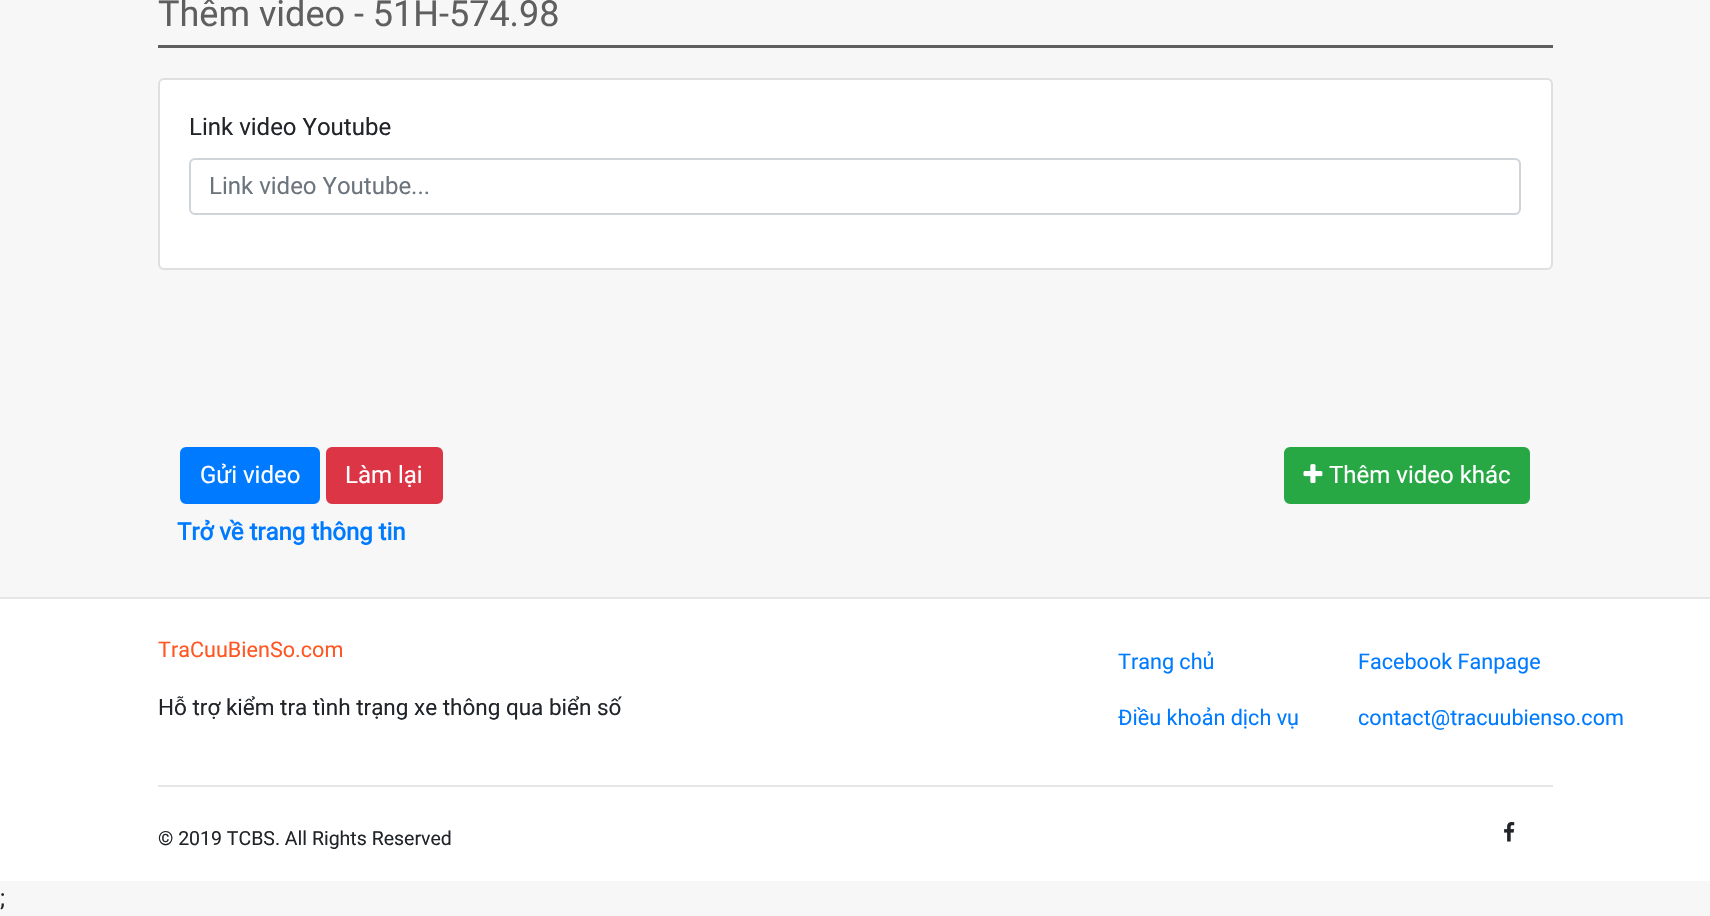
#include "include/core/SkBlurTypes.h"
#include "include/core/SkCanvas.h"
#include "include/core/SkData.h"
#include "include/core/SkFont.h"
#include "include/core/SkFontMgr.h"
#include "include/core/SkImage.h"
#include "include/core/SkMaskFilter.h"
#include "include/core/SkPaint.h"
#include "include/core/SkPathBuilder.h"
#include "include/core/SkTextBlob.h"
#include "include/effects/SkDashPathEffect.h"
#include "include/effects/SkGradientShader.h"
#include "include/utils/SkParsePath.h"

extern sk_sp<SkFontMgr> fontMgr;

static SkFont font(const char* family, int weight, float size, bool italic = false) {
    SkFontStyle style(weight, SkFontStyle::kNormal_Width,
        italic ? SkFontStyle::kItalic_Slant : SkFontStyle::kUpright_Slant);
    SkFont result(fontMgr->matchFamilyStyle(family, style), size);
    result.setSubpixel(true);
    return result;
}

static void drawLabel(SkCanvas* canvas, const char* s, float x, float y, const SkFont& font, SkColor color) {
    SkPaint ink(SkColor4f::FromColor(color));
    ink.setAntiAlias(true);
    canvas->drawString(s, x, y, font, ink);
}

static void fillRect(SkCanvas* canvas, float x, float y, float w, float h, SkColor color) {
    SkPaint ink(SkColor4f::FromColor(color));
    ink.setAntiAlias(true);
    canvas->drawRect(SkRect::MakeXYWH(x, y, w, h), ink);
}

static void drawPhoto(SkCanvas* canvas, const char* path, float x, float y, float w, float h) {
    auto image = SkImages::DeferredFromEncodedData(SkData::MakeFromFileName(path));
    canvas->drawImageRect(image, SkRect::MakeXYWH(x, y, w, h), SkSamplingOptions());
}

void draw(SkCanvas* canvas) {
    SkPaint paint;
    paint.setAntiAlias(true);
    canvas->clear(0xFFF7F7F7);
    fillRect(canvas, 158, 45, 1395, 3, 0xFF5F5F5F);
    SkFont font1 = font("Roboto", 400, 36);
    drawLabel(canvas, "Thêm video - 51H-574.98", 158, 26, font1, 0xFF5F5F5F);
    paint.setColor(0xFFFFFFFF);
    canvas->drawRoundRect(SkRect::MakeXYWH(159, 79, 1393, 190), 5, 5, paint);
    paint.setStroke(true);
    paint.setStrokeWidth(2);
    paint.setColor(0xFFDFDFDF);
    canvas->drawRoundRect(SkRect::MakeXYWH(159, 79, 1393, 190), 5, 5, paint);
    SkFont font2 = font("Roboto", 400, 24);
    drawLabel(canvas, "Link video Youtube", 189, 135, font2, 0xFF212529);
    paint.setColor(0xFFCED4DA);
    canvas->drawRoundRect(SkRect::MakeXYWH(190, 159, 1330, 55), 5, 5, paint);
    drawLabel(canvas, "Link video Youtube...", 209, 194, font2, 0xFF6C757D);
    paint.setStroke(false);
    paint.setColor(0xFF007BFF);
    canvas->drawRoundRect(SkRect::MakeXYWH(181, 448, 138, 55), 5, 5, paint);
    paint.setStroke(true);
    canvas->drawRoundRect(SkRect::MakeXYWH(181, 448, 138, 55), 5, 5, paint);
    drawLabel(canvas, "Gửi video", 200, 483, font2, 0xFFFFFFFF);
    paint.setStroke(false);
    paint.setColor(0xFFDC3545);
    canvas->drawRoundRect(SkRect::MakeXYWH(327, 448, 115, 55), 5, 5, paint);
    paint.setStroke(true);
    canvas->drawRoundRect(SkRect::MakeXYWH(327, 448, 115, 55), 5, 5, paint);
    drawLabel(canvas, "Làm lại", 345, 483, font2, 0xFFFFFFFF);
    paint.setStroke(false);
    paint.setColor(0xFF28A745);
    canvas->drawRoundRect(SkRect::MakeXYWH(1285, 448, 244, 55), 5, 5, paint);
    paint.setStroke(true);
    canvas->drawRoundRect(SkRect::MakeXYWH(1285, 448, 244, 55), 5, 5, paint);
    drawPhoto(canvas, "assets/img1.png", 1303, 464, 20, 19);
    drawLabel(canvas, "Thêm video khác", 1329, 483, font2, 0xFFFFFFFF);
    SkFont font3 = font("Roboto", 700, 24);
    drawLabel(canvas, "Trở về trang thông tin", 177, 540, font3, 0xFF007BFF);
    fillRect(canvas, 0, 599, 1710, 282, 0xFFFFFFFF);
    fillRect(canvas, 0, 597, 1710, 2, 0xFFE6E6E6);
    SkFont font4 = font("Roboto", 400, 21.6f);
    drawLabel(canvas, "TraCuuBienSo.com", 158, 657, font4, 0xFFFF5722);
    SkFont font5 = font("Roboto", 400, 22.5f);
    drawLabel(canvas, "Hỗ trợ kiểm tra tình trạng xe thông qua biển số", 158, 715, font5, 0xFF212529);
    drawLabel(canvas, "Trang chủ", 1118, 669, font4, 0xFF007BFF);
    drawLabel(canvas, "Điều khoản dịch vụ", 1118, 725, font4, 0xFF007BFF);
    drawLabel(canvas, "Facebook Fanpage", 1358, 669, font4, 0xFF007BFF);
    drawLabel(canvas, "contact@tracuubienso.com", 1358, 725, font4, 0xFF007BFF);
    fillRect(canvas, 158, 785, 1395, 2, 0xFFE6E6E6);
    SkFont font6 = font("Roboto", 400, 19.5f);
    drawLabel(canvas, "© 2019 TCBS. All Rights Reserved", 158, 845, font6, 0xFF212529);
    drawPhoto(canvas, "assets/img2.png", 1504, 822, 11, 20);
    drawLabel(canvas, ";", 0, 906, font2, 0xFF212529);
}
